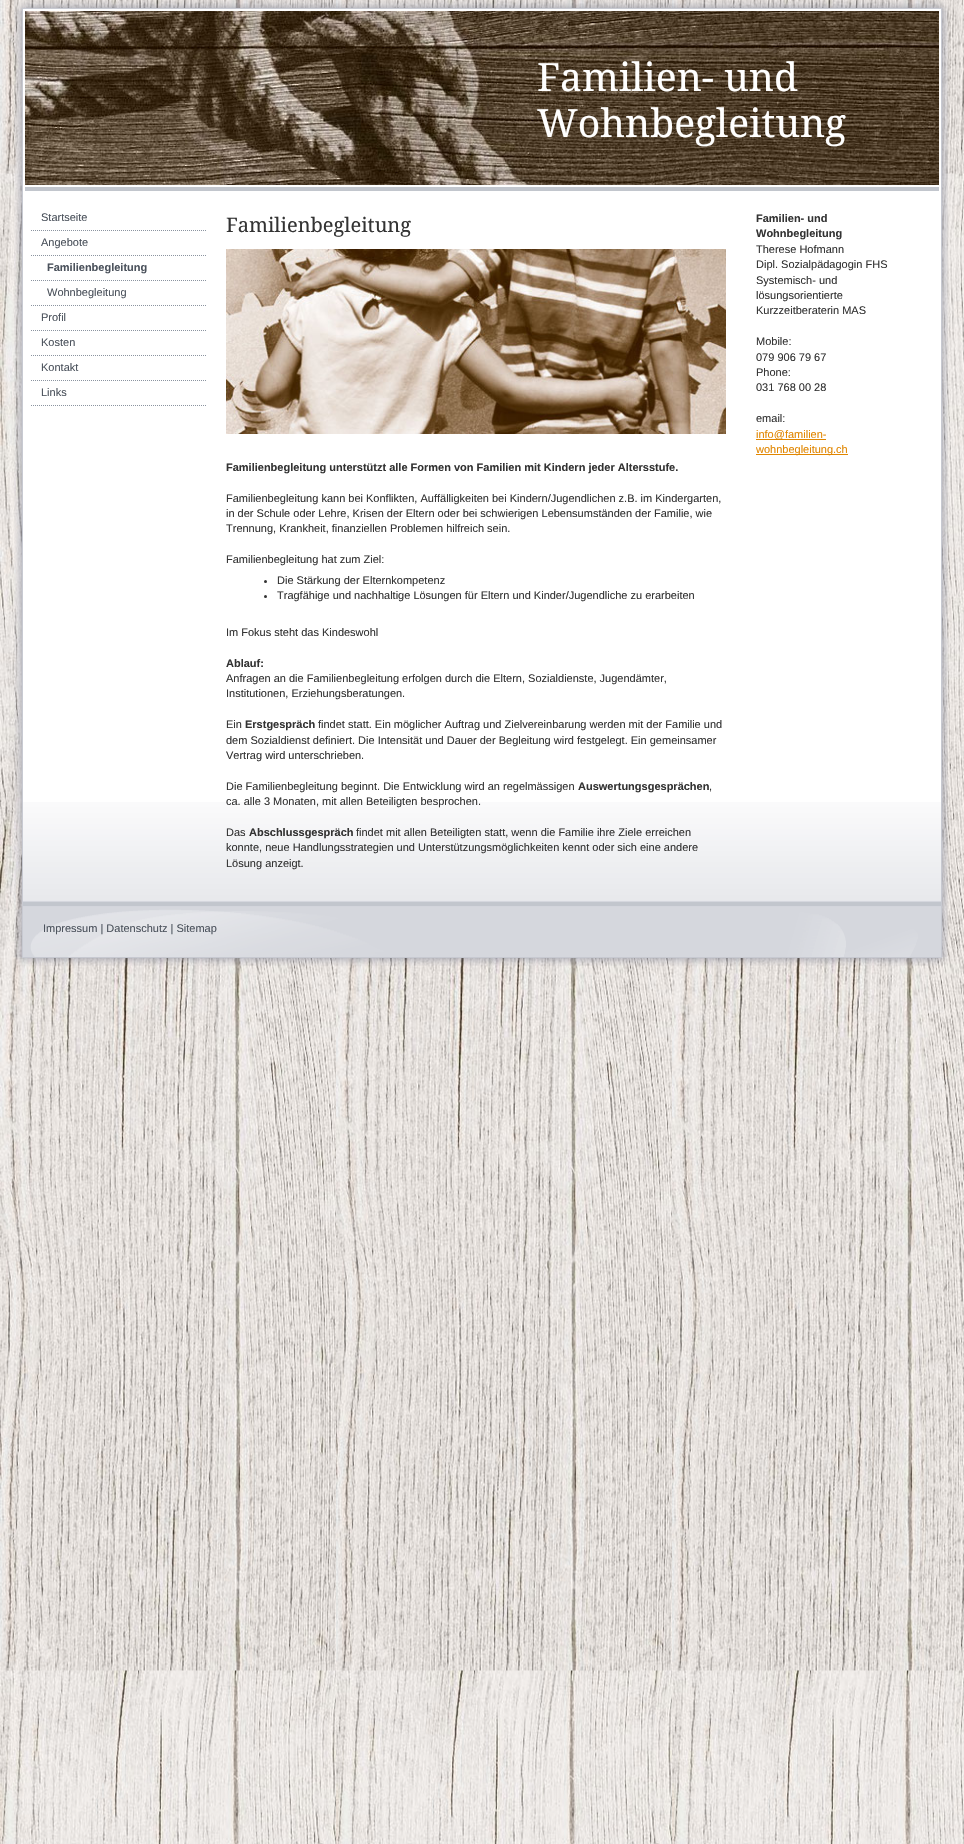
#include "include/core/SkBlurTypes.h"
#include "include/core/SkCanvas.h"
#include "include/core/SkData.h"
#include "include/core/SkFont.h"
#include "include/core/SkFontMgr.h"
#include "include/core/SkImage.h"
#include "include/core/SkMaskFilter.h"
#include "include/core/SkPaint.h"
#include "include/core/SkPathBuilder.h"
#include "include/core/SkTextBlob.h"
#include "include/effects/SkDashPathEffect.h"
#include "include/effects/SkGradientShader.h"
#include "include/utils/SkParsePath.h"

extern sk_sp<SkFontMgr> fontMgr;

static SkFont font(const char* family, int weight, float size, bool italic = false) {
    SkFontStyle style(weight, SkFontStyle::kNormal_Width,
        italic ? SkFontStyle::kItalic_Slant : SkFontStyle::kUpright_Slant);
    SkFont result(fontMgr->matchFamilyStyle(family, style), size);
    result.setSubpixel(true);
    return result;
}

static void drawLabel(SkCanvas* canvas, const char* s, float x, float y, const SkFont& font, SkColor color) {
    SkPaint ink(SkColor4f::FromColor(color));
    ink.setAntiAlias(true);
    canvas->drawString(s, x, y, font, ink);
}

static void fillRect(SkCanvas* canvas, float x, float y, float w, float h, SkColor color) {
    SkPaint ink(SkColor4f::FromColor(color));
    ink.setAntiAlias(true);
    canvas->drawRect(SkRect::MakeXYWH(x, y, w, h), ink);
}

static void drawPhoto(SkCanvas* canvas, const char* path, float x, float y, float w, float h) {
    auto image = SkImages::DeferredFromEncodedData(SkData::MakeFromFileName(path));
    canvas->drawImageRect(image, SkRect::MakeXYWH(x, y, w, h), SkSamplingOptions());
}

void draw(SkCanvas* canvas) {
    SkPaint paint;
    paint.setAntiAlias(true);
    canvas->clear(0xFFFFFFFF);
    drawPhoto(canvas, "assets/img1.png", 0, 0, 964, 1844);
    drawPhoto(canvas, "assets/img2.png", 14, 0, 936, 11);
    drawPhoto(canvas, "assets/img3.png", 14, 11, 934, 946);
    fillRect(canvas, 25, 187, 914, 4, 0xFFC2C6CD);
    drawPhoto(canvas, "assets/img4.png", 25, 11, 914, 174);
    SkFont font1 = font("Droid Serif", 400, 39);
    drawLabel(canvas, "Familien- und", 537, 91, font1, 0xFFFFFFFF);
    drawLabel(canvas, "Wohnbegleitung", 537, 137, font1, 0xFFFFFFFF);
    drawPhoto(canvas, "assets/img5.png", 23, 802, 918, 99);
    drawPhoto(canvas, "assets/img6.png", 31, 230, 175, 1);
    SkFont font2 = font("Liberation Sans", 400, 11);
    drawLabel(canvas, "Startseite", 41, 221, font2, 0xFF4B525C);
    drawPhoto(canvas, "assets/img6.png", 31, 255, 175, 1);
    drawLabel(canvas, "Angebote", 41, 246, font2, 0xFF4B525C);
    drawPhoto(canvas, "assets/img6.png", 31, 280, 175, 1);
    SkFont font3 = font("Liberation Sans", 700, 11);
    drawLabel(canvas, "Familienbegleitung", 47, 271, font3, 0xFF4B525C);
    drawPhoto(canvas, "assets/img6.png", 31, 305, 175, 1);
    drawLabel(canvas, "Wohnbegleitung", 47, 296, font2, 0xFF4B525C);
    drawPhoto(canvas, "assets/img6.png", 31, 330, 175, 1);
    drawLabel(canvas, "Profil", 41, 321, font2, 0xFF4B525C);
    drawPhoto(canvas, "assets/img6.png", 31, 355, 175, 1);
    drawLabel(canvas, "Kosten", 41, 346, font2, 0xFF4B525C);
    drawPhoto(canvas, "assets/img6.png", 31, 380, 175, 1);
    drawLabel(canvas, "Kontakt", 41, 371, font2, 0xFF4B525C);
    drawPhoto(canvas, "assets/img6.png", 31, 405, 175, 1);
    drawLabel(canvas, "Links", 41, 396, font2, 0xFF4B525C);
    SkFont font4 = font("Droid Serif", 400, 20);
    drawLabel(canvas, "Familienbegleitung", 226, 232, font4, 0xFF333333);
    drawPhoto(canvas, "assets/img7.png", 226, 249, 500, 185);
    drawLabel(canvas, "Familienbegleitung unterstützt alle Formen von Familien mit Kindern jeder Altersstufe.", 226, 471, font3, 0xFF333333);
    drawLabel(canvas, "Familienbegleitung kann bei Konflikten, Auffälligkeiten bei Kindern/Jugendlichen z.B. im Kindergarten,", 226, 502, font2, 0xFF333333);
    drawLabel(canvas, "in der Schule oder Lehre, Krisen der Eltern oder bei schwierigen Lebensumständen der Familie, wie", 226, 517, font2, 0xFF333333);
    drawLabel(canvas, "Trennung, Krankheit, finanziellen Problemen hilfreich sein.", 226, 532, font2, 0xFF333333);
    drawLabel(canvas, "Familienbegleitung hat zum Ziel:", 226, 563, font2, 0xFF333333);
    paint.setColor(0xFF333333);
    canvas->drawCircle(265.5f, 581.5f, 1.5f, paint);
    drawLabel(canvas, "Die Stärkung der Elternkompetenz", 277, 584, font2, 0xFF333333);
    canvas->drawCircle(265.5f, 596.5f, 1.5f, paint);
    drawLabel(canvas, "Tragfähige und nachhaltige Lösungen für Eltern und Kinder/Jugendliche zu erarbeiten", 277, 599, font2, 0xFF333333);
    drawLabel(canvas, "Im Fokus steht das Kindeswohl", 226, 636, font2, 0xFF333333);
    drawLabel(canvas, "Ablauf:", 226, 667, font3, 0xFF333333);
    drawLabel(canvas, "Anfragen an die Familienbegleitung erfolgen durch die Eltern, Sozialdienste, Jugendämter,", 226, 682, font2, 0xFF333333);
    drawLabel(canvas, "Institutionen, Erziehungsberatungen.", 226, 697, font2, 0xFF333333);
    drawLabel(canvas, "Ein", 226, 728, font2, 0xFF333333);
    drawLabel(canvas, "Erstgespräch", 245, 728, font3, 0xFF333333);
    drawLabel(canvas, "findet statt. Ein möglicher Auftrag und Zielvereinbarung werden mit der Familie und", 318, 728, font2, 0xFF333333);
    drawLabel(canvas, "dem Sozialdienst definiert. Die Intensität und Dauer der Begleitung wird festgelegt. Ein gemeinsamer", 226, 744, font2, 0xFF333333);
    drawLabel(canvas, "Vertrag wird unterschrieben.", 226, 759, font2, 0xFF333333);
    drawLabel(canvas, "Die Familienbegleitung beginnt. Die Entwicklung wird an regelmässigen", 226, 790, font2, 0xFF333333);
    drawLabel(canvas, "Auswertungsgesprächen", 578, 790, font3, 0xFF333333);
    drawLabel(canvas, ",", 709, 790, font2, 0xFF333333);
    drawLabel(canvas, "ca. alle 3 Monaten, mit allen Beteiligten besprochen.", 226, 805, font2, 0xFF333333);
    drawLabel(canvas, "Das", 226, 836, font2, 0xFF333333);
    drawLabel(canvas, "Abschlussgespräch", 249, 836, font3, 0xFF333333);
    drawLabel(canvas, "findet mit allen Beteiligten statt, wenn die Familie ihre Ziele erreichen", 356, 836, font2, 0xFF333333);
    drawLabel(canvas, "konnte, neue Handlungsstrategien und Unterstützungsmöglichkeiten kennt oder sich eine andere", 226, 851, font2, 0xFF333333);
    drawLabel(canvas, "Lösung anzeigt.", 226, 867, font2, 0xFF333333);
    drawLabel(canvas, "Familien- und", 756, 222, font3, 0xFF333333);
    drawLabel(canvas, "Wohnbegleitung", 756, 237, font3, 0xFF333333);
    drawLabel(canvas, "Therese Hofmann", 756, 253, font2, 0xFF333333);
    drawLabel(canvas, "Dipl. Sozialpädagogin FHS", 756, 268, font2, 0xFF333333);
    drawLabel(canvas, "Systemisch- und", 756, 284, font2, 0xFF333333);
    drawLabel(canvas, "lösungsorientierte", 756, 299, font2, 0xFF333333);
    drawLabel(canvas, "Kurzzeitberaterin MAS", 756, 314, font2, 0xFF333333);
    drawLabel(canvas, "Mobile:", 756, 345, font2, 0xFF333333);
    drawLabel(canvas, "079 906 79 67", 756, 361, font2, 0xFF333333);
    drawLabel(canvas, "Phone:", 756, 376, font2, 0xFF333333);
    drawLabel(canvas, "031 768 00 28", 756, 391, font2, 0xFF333333);
    drawLabel(canvas, "email:", 756, 422, font2, 0xFF333333);
    fillRect(canvas, 756, 439, 70, 1, 0xFFE18600);
    drawLabel(canvas, "info@familien-", 756, 438, font2, 0xFFE18600);
    fillRect(canvas, 756, 454, 92, 1, 0xFFE18600);
    drawLabel(canvas, "wohnbegleitung.ch", 756, 453, font2, 0xFFE18600);
    fillRect(canvas, 23, 901, 918, 1, 0xFFD5D7DE);
    drawPhoto(canvas, "assets/img8.png", 23, 902, 918, 55);
    drawLabel(canvas, "Impressum | Datenschutz | Sitemap", 43, 932, font2, 0xFF4B525C);
    drawPhoto(canvas, "assets/img9.png", 15, 957, 934, 9);
}
